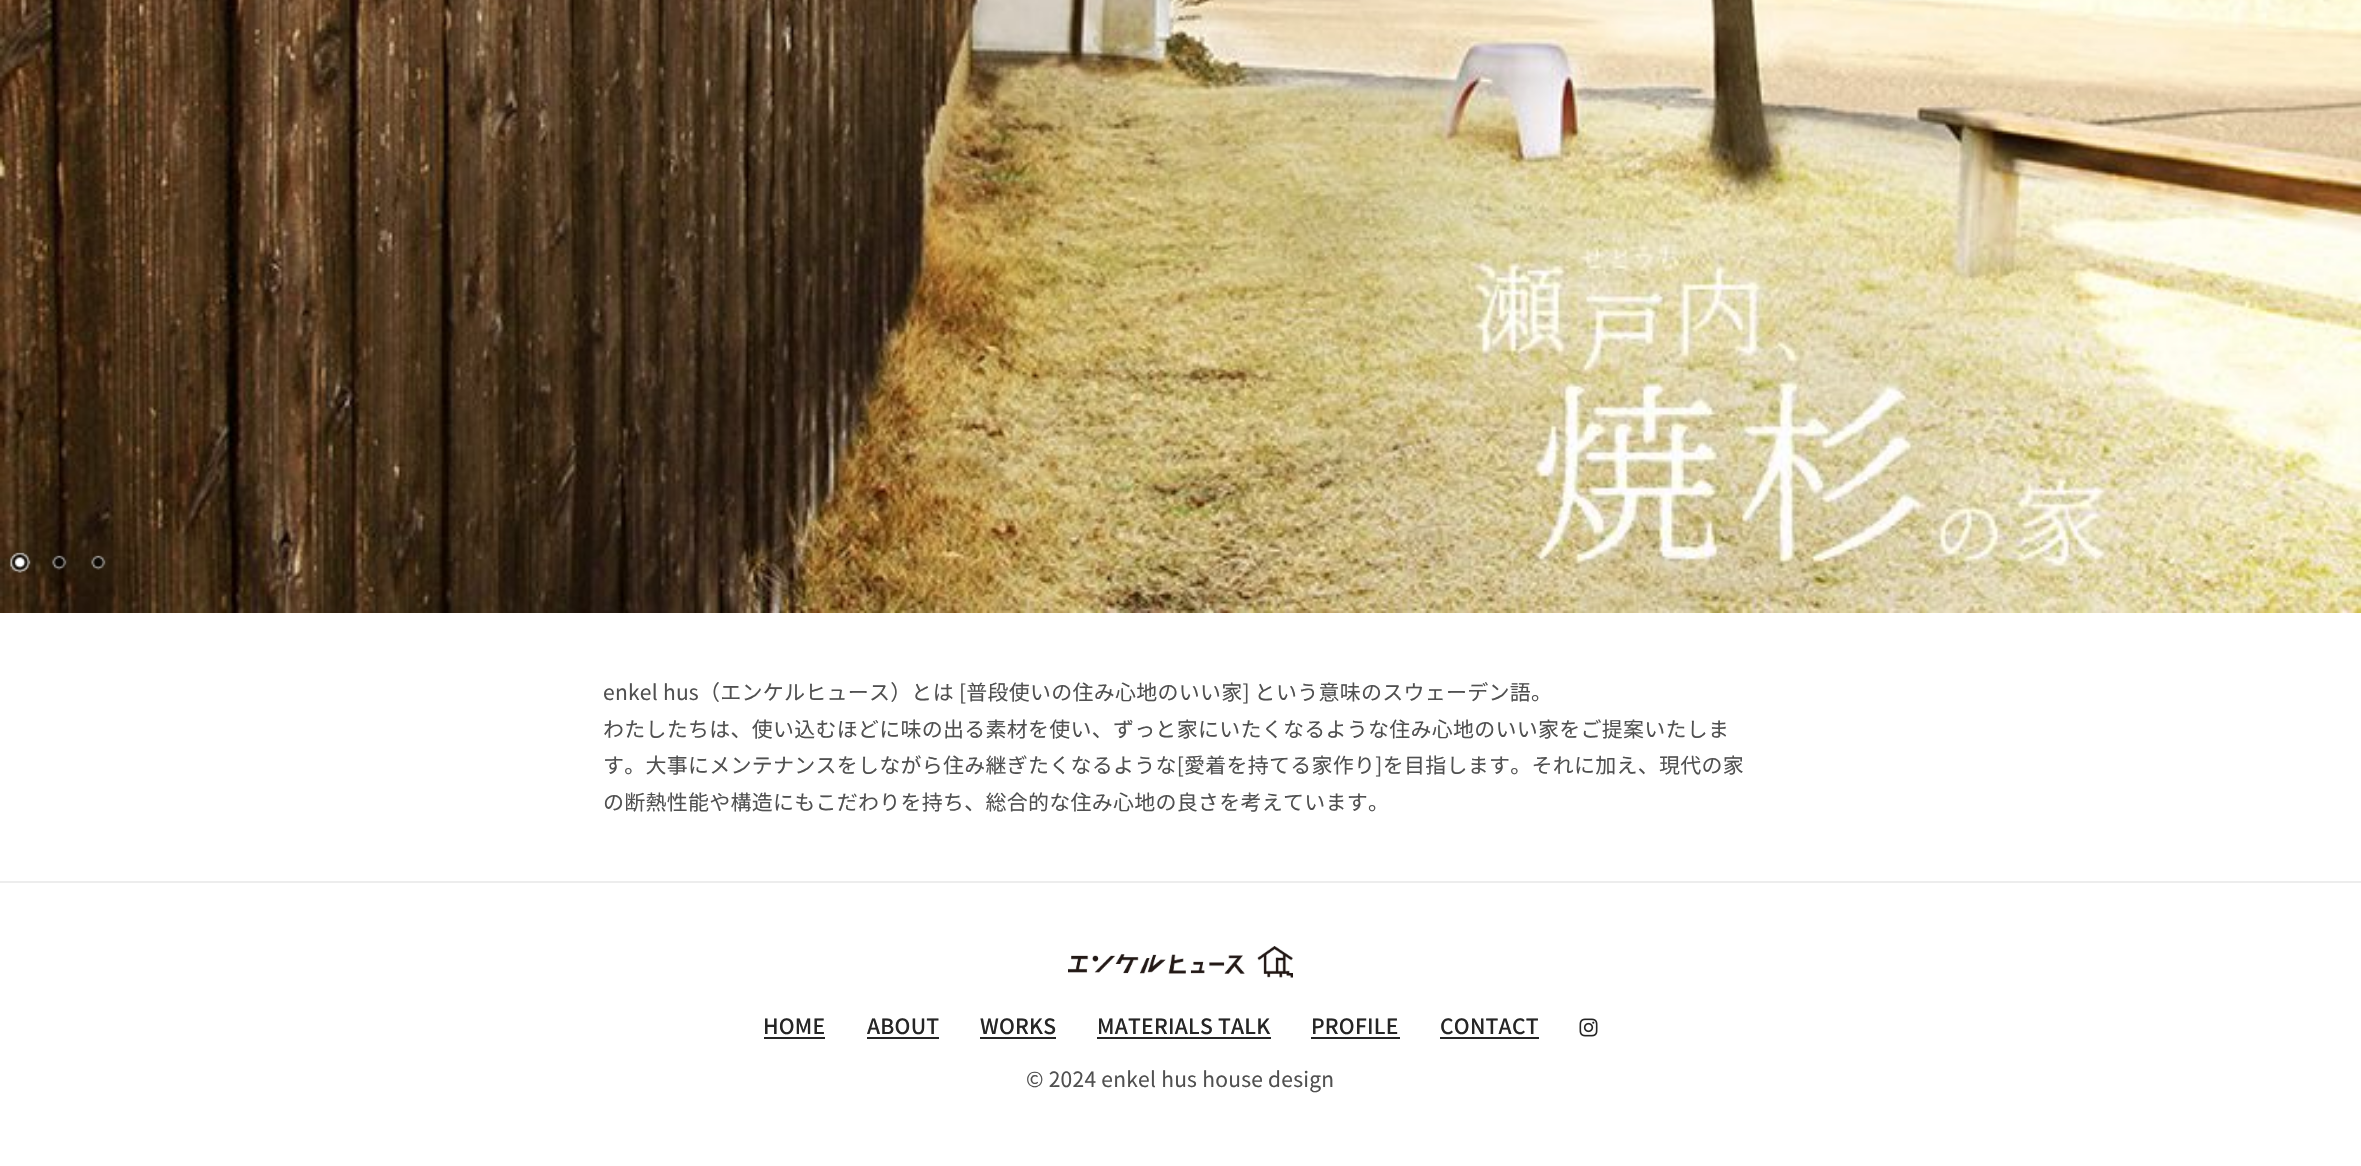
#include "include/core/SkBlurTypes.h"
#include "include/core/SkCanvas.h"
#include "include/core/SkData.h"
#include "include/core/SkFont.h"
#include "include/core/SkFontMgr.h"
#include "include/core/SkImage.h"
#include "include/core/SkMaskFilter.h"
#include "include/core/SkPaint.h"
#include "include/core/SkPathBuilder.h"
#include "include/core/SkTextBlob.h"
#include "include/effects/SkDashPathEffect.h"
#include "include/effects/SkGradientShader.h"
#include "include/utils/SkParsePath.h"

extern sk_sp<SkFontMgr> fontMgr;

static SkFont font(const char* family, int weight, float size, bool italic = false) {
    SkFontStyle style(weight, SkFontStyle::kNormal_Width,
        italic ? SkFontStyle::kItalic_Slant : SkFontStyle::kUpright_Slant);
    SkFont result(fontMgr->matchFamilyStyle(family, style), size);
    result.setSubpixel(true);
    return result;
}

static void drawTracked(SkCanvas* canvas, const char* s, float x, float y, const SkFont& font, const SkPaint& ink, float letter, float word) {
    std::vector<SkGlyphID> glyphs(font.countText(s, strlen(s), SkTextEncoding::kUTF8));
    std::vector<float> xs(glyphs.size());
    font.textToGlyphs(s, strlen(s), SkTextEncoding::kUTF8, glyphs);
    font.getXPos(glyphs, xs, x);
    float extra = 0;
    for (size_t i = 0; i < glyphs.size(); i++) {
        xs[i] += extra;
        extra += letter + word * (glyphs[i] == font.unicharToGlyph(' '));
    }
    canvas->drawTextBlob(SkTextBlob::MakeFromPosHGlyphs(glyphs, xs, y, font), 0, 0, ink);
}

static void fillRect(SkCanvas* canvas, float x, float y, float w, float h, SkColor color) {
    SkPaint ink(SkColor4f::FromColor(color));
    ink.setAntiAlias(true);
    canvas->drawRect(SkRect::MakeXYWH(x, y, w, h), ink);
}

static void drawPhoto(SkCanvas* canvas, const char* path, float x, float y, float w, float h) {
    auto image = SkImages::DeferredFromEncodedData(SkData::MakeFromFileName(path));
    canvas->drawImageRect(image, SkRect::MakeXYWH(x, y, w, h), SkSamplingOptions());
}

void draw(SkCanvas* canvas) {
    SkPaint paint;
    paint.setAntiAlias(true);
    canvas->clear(0xFFFFFFFF);
    drawPhoto(canvas, "assets/img1.png", 0, 0, 2361, 613);
    drawPhoto(canvas, "assets/img2.png", 9, 551, 22, 23);
    drawPhoto(canvas, "assets/img3.png", 52, 555, 15, 15);
    drawPhoto(canvas, "assets/img4.png", 91, 555, 15, 15);
    SkFont font1 = font("Noto Sans JP", 400, 21);
    paint.setColor(0xFF505050);
    drawTracked(canvas, "enkel hus（エンケルヒュース）とは [普段使いの住み心地のいい家] という意味のスウェーデン語。", 603, 700, font1, paint, 0.25f, 0);
    drawTracked(canvas, "わたしたちは、使い込むほどに味の出る素材を使い、ずっと家にいたくなるような住み心地のいい家をご提案いたしま", 603, 737, font1, paint, 0.25f, 0);
    drawTracked(canvas, "す。大事にメンテナンスをしながら住み継ぎたくなるような[愛着を持てる家作り]を目指します。それに加え、現代の家", 603, 773, font1, paint, 0.25f, 0);
    drawTracked(canvas, "の断熱性能や構造にもこだわりを持ち、総合的な住み心地の良さを考えています。", 603, 810, font1, paint, 0.25f, 0);
    fillRect(canvas, 0, 881, 2361, 2, 0xFFEDEDED);
    drawPhoto(canvas, "assets/img5.png", 1068, 946, 225, 32);
    SkFont font2 = font("Noto Sans JP", 500, 21);
    paint.setColor(0xFF252525);
    drawTracked(canvas, "HOME", 763, 1034, font2, paint, 0.25f, 0);
    fillRect(canvas, 764, 1037, 61, 2, 0xFF252525);
    drawTracked(canvas, "ABOUT", 867, 1034, font2, paint, 0.25f, 0);
    fillRect(canvas, 867, 1037, 72, 2, 0xFF252525);
    drawTracked(canvas, "WORKS", 980, 1034, font2, paint, 0.25f, 0);
    fillRect(canvas, 980, 1037, 76, 2, 0xFF252525);
    drawTracked(canvas, "MATERIALS TALK", 1097, 1034, font2, paint, 0.25f, 0);
    fillRect(canvas, 1097, 1037, 174, 2, 0xFF252525);
    drawTracked(canvas, "PROFILE", 1311, 1034, font2, paint, 0.25f, 0);
    fillRect(canvas, 1311, 1037, 89, 2, 0xFF252525);
    drawTracked(canvas, "CONTACT", 1440, 1034, font2, paint, 0.25f, 0);
    fillRect(canvas, 1440, 1037, 99, 2, 0xFF252525);
    drawPhoto(canvas, "assets/img6.png", 1579, 1018, 19, 19);
    paint.setColor(0xFF505050);
    drawTracked(canvas, "© 2024 enkel hus house design", 1026, 1087, font1, paint, 0.25f, 0);
}
